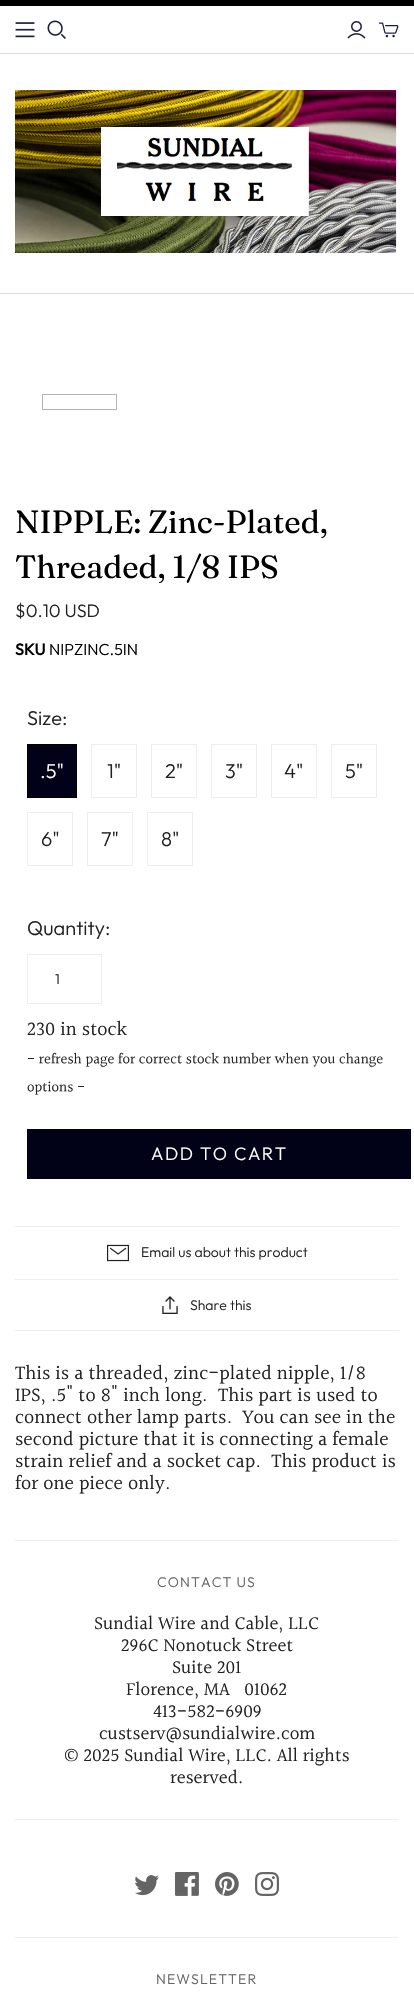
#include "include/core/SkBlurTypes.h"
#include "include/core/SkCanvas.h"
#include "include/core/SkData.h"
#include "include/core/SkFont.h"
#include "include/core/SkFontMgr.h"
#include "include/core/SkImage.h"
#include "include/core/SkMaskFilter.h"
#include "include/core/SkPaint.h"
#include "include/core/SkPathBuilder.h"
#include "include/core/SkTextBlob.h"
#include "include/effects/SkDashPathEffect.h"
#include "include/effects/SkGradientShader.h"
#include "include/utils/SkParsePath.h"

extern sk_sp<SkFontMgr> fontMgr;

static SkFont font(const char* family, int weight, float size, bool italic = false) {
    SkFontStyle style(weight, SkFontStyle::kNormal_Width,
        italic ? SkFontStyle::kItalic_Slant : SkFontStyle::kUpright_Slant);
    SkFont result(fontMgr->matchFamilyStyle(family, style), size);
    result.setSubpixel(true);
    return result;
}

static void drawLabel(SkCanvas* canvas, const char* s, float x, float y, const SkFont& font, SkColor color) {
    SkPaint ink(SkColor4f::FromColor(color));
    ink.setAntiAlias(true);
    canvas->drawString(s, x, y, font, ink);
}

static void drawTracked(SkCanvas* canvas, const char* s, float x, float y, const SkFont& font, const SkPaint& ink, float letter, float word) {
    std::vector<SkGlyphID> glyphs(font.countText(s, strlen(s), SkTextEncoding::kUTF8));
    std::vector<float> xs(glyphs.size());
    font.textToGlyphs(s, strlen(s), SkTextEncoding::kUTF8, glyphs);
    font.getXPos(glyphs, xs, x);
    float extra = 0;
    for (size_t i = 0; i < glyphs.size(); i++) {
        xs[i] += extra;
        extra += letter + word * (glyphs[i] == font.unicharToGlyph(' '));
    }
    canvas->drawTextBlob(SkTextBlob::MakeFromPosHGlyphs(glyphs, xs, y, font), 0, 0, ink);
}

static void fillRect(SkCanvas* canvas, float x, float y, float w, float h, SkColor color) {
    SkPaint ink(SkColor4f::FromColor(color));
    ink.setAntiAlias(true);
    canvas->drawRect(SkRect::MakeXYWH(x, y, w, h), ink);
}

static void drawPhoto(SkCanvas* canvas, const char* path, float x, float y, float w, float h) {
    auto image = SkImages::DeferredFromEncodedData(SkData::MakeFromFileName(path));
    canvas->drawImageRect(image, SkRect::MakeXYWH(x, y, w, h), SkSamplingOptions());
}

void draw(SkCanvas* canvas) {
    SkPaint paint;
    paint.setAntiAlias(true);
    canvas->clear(0xFFFFFFFF);
    fillRect(canvas, 0, 0, 414, 6, 0xFF000000);
    fillRect(canvas, 0, 293, 414, 1, 0xFFDDDDDD);
    drawPhoto(canvas, "assets/img1.png", 15, 22, 20, 16);
    drawPhoto(canvas, "assets/img2.png", 47, 20, 19, 19);
    drawPhoto(canvas, "assets/img3.png", 347, 21, 19, 18);
    drawPhoto(canvas, "assets/img4.png", 379, 22, 20, 16);
    fillRect(canvas, 0, 53, 414, 1, 0xFFDDDDDD);
    drawPhoto(canvas, "assets/img5.png", 15, 90, 382, 163);
    paint.setStroke(true);
    paint.setStrokeWidth(1);
    paint.setColor(0xFFB3B3B3);
    canvas->drawRect(SkRect::MakeXYWH(42.5f, 394.5f, 74, 15), paint);
    SkFont font1 = font("Fraunces", 400, 32);
    drawLabel(canvas, "NIPPLE: Zinc-Plated,", 15, 533, font1, 0xFF000000);
    drawLabel(canvas, "Threaded, 1/8 IPS", 15, 578, font1, 0xFF000000);
    SkFont font2 = font("Outfit", 300, 18);
    drawLabel(canvas, "$0.10 USD", 15, 617, font2, 0xFF222222);
    SkFont font3 = font("Outfit", 700, 16);
    drawLabel(canvas, "SKU", 15, 655, font3, 0xFF000000);
    SkFont font4 = font("Outfit", 300, 16);
    drawLabel(canvas, "NIPZINC.5IN", 49, 655, font4, 0xFF000000);
    SkFont font5 = font("Outfit", 300, 20);
    drawLabel(canvas, "Size:", 27, 725, font5, 0xFF222222);
    paint.setStroke(false);
    paint.setColor(0xFF010217);
    canvas->drawRect(SkRect::MakeXYWH(27.5f, 744.5f, 49, 53), paint);
    paint.setStroke(true);
    paint.setColor(0xFF000000);
    canvas->drawRect(SkRect::MakeXYWH(27.5f, 744.5f, 49, 53), paint);
    drawLabel(canvas, ".5\"", 40, 778, font5, 0xFFFFFFFF);
    paint.setColor(0xFFEEEEEE);
    canvas->drawRect(SkRect::MakeXYWH(91.5f, 744.5f, 45, 53), paint);
    drawLabel(canvas, "1\"", 107, 778, font5, 0xFF222222);
    canvas->drawRect(SkRect::MakeXYWH(151.5f, 744.5f, 45, 53), paint);
    drawLabel(canvas, "2\"", 165, 778, font5, 0xFF222222);
    canvas->drawRect(SkRect::MakeXYWH(211.5f, 744.5f, 45, 53), paint);
    drawLabel(canvas, "3\"", 225, 778, font5, 0xFF222222);
    canvas->drawRect(SkRect::MakeXYWH(271.5f, 744.5f, 45, 53), paint);
    drawLabel(canvas, "4\"", 284, 778, font5, 0xFF222222);
    canvas->drawRect(SkRect::MakeXYWH(331.5f, 744.5f, 45, 53), paint);
    drawLabel(canvas, "5\"", 345, 778, font5, 0xFF222222);
    canvas->drawRect(SkRect::MakeXYWH(27.5f, 812.5f, 45, 53), paint);
    drawLabel(canvas, "6\"", 41, 846, font5, 0xFF222222);
    canvas->drawRect(SkRect::MakeXYWH(87.5f, 812.5f, 45, 53), paint);
    drawLabel(canvas, "7\"", 101, 846, font5, 0xFF222222);
    canvas->drawRect(SkRect::MakeXYWH(147.5f, 812.5f, 45, 53), paint);
    drawLabel(canvas, "8\"", 161, 846, font5, 0xFF222222);
    drawLabel(canvas, "Quantity:", 27, 935, font5, 0xFF222222);
    canvas->drawRect(SkRect::MakeXYWH(27.5f, 954.5f, 74, 49), paint);
    SkFont font6 = font("Outfit", 300, 14);
    drawLabel(canvas, "1", 55, 984, font6, 0xFF222222);
    SkFont font7 = font("Halant", 400, 20);
    drawLabel(canvas, "230 in stock", 27, 1036, font7, 0xFF222222);
    SkFont font8 = font("Halant", 400, 14.7f);
    drawLabel(canvas, "- refresh page for correct stock number when you change", 27, 1064, font8, 0xFF222222);
    drawLabel(canvas, "options -", 27, 1092, font8, 0xFF222222);
    fillRect(canvas, 27, 1129, 384, 50, 0xFF010217);
    paint.setStroke(false);
    paint.setColor(0xFFFFFFFF);
    drawTracked(canvas, "ADD TO CART", 151, 1160, font2, paint, 1.5f, 0);
    fillRect(canvas, 15, 1226, 384, 1, 0xFFEEEEEE);
    fillRect(canvas, 15, 1330, 384, 1, 0xFFEEEEEE);
    drawPhoto(canvas, "assets/img6.png", 107, 1244, 22, 18);
    drawLabel(canvas, "Email us about this product", 141, 1257, font6, 0xFF222222);
    fillRect(canvas, 15, 1279, 384, 1, 0xFFEEEEEE);
    drawPhoto(canvas, "assets/img7.png", 162, 1296, 16, 18);
    drawLabel(canvas, "Share this", 190, 1310, font6, 0xFF222222);
    drawLabel(canvas, "This is a threaded, zinc-plated nipple, 1/8", 15, 1380, font7, 0xFF222222);
    drawLabel(canvas, "IPS, .5\" to 8\" inch long.", 15, 1402, font7, 0xFF222222);
    drawLabel(canvas, "This part is used to", 218, 1402, font7, 0xFF222222);
    drawLabel(canvas, "connect other lamp parts.  You can see in the", 15, 1424, font7, 0xFF222222);
    drawLabel(canvas, "second picture that it is connecting a female", 15, 1446, font7, 0xFF222222);
    drawLabel(canvas, "strain relief and a socket cap.  This product is", 15, 1468, font7, 0xFF222222);
    drawLabel(canvas, "for one piece only.", 15, 1490, font7, 0xFF222222);
    fillRect(canvas, 15, 1540, 384, 1, 0xFFEEEEEE);
    paint.setColor(0xFF646464);
    drawTracked(canvas, "CONTACT US", 157, 1587, font6, paint, 1.1f, 0);
    SkFont font9 = font("Halant", 400, 19);
    drawLabel(canvas, "Sundial Wire and Cable, LLC", 94, 1630, font9, 0xFF222222);
    drawLabel(canvas, "296C Nonotuck Street", 121, 1652, font9, 0xFF222222);
    drawLabel(canvas, "Suite 201", 172, 1674, font9, 0xFF222222);
    drawLabel(canvas, "Florence, MA   01062", 126, 1696, font9, 0xFF222222);
    drawLabel(canvas, "413-582-6909", 153, 1718, font9, 0xFF222222);
    drawLabel(canvas, "custserv@sundialwire.com", 99, 1740, font9, 0xFF222222);
    drawLabel(canvas, "© 2025 Sundial Wire, LLC. All rights", 64, 1762, font9, 0xFF222222);
    drawLabel(canvas, "reserved.", 170, 1784, font9, 0xFF222222);
    fillRect(canvas, 15, 1819, 384, 1, 0xFFEEEEEE);
    drawPhoto(canvas, "assets/img8.png", 135, 1875, 24, 21);
    drawPhoto(canvas, "assets/img9.png", 175, 1872, 24, 24);
    drawPhoto(canvas, "assets/img10.png", 215, 1872, 24, 24);
    drawPhoto(canvas, "assets/img11.png", 255, 1872, 24, 24);
    fillRect(canvas, 15, 1937, 384, 1, 0xFFEEEEEE);
    drawTracked(canvas, "NEWSLETTER", 156, 1984, font6, paint, 1.1f, 0);
}
